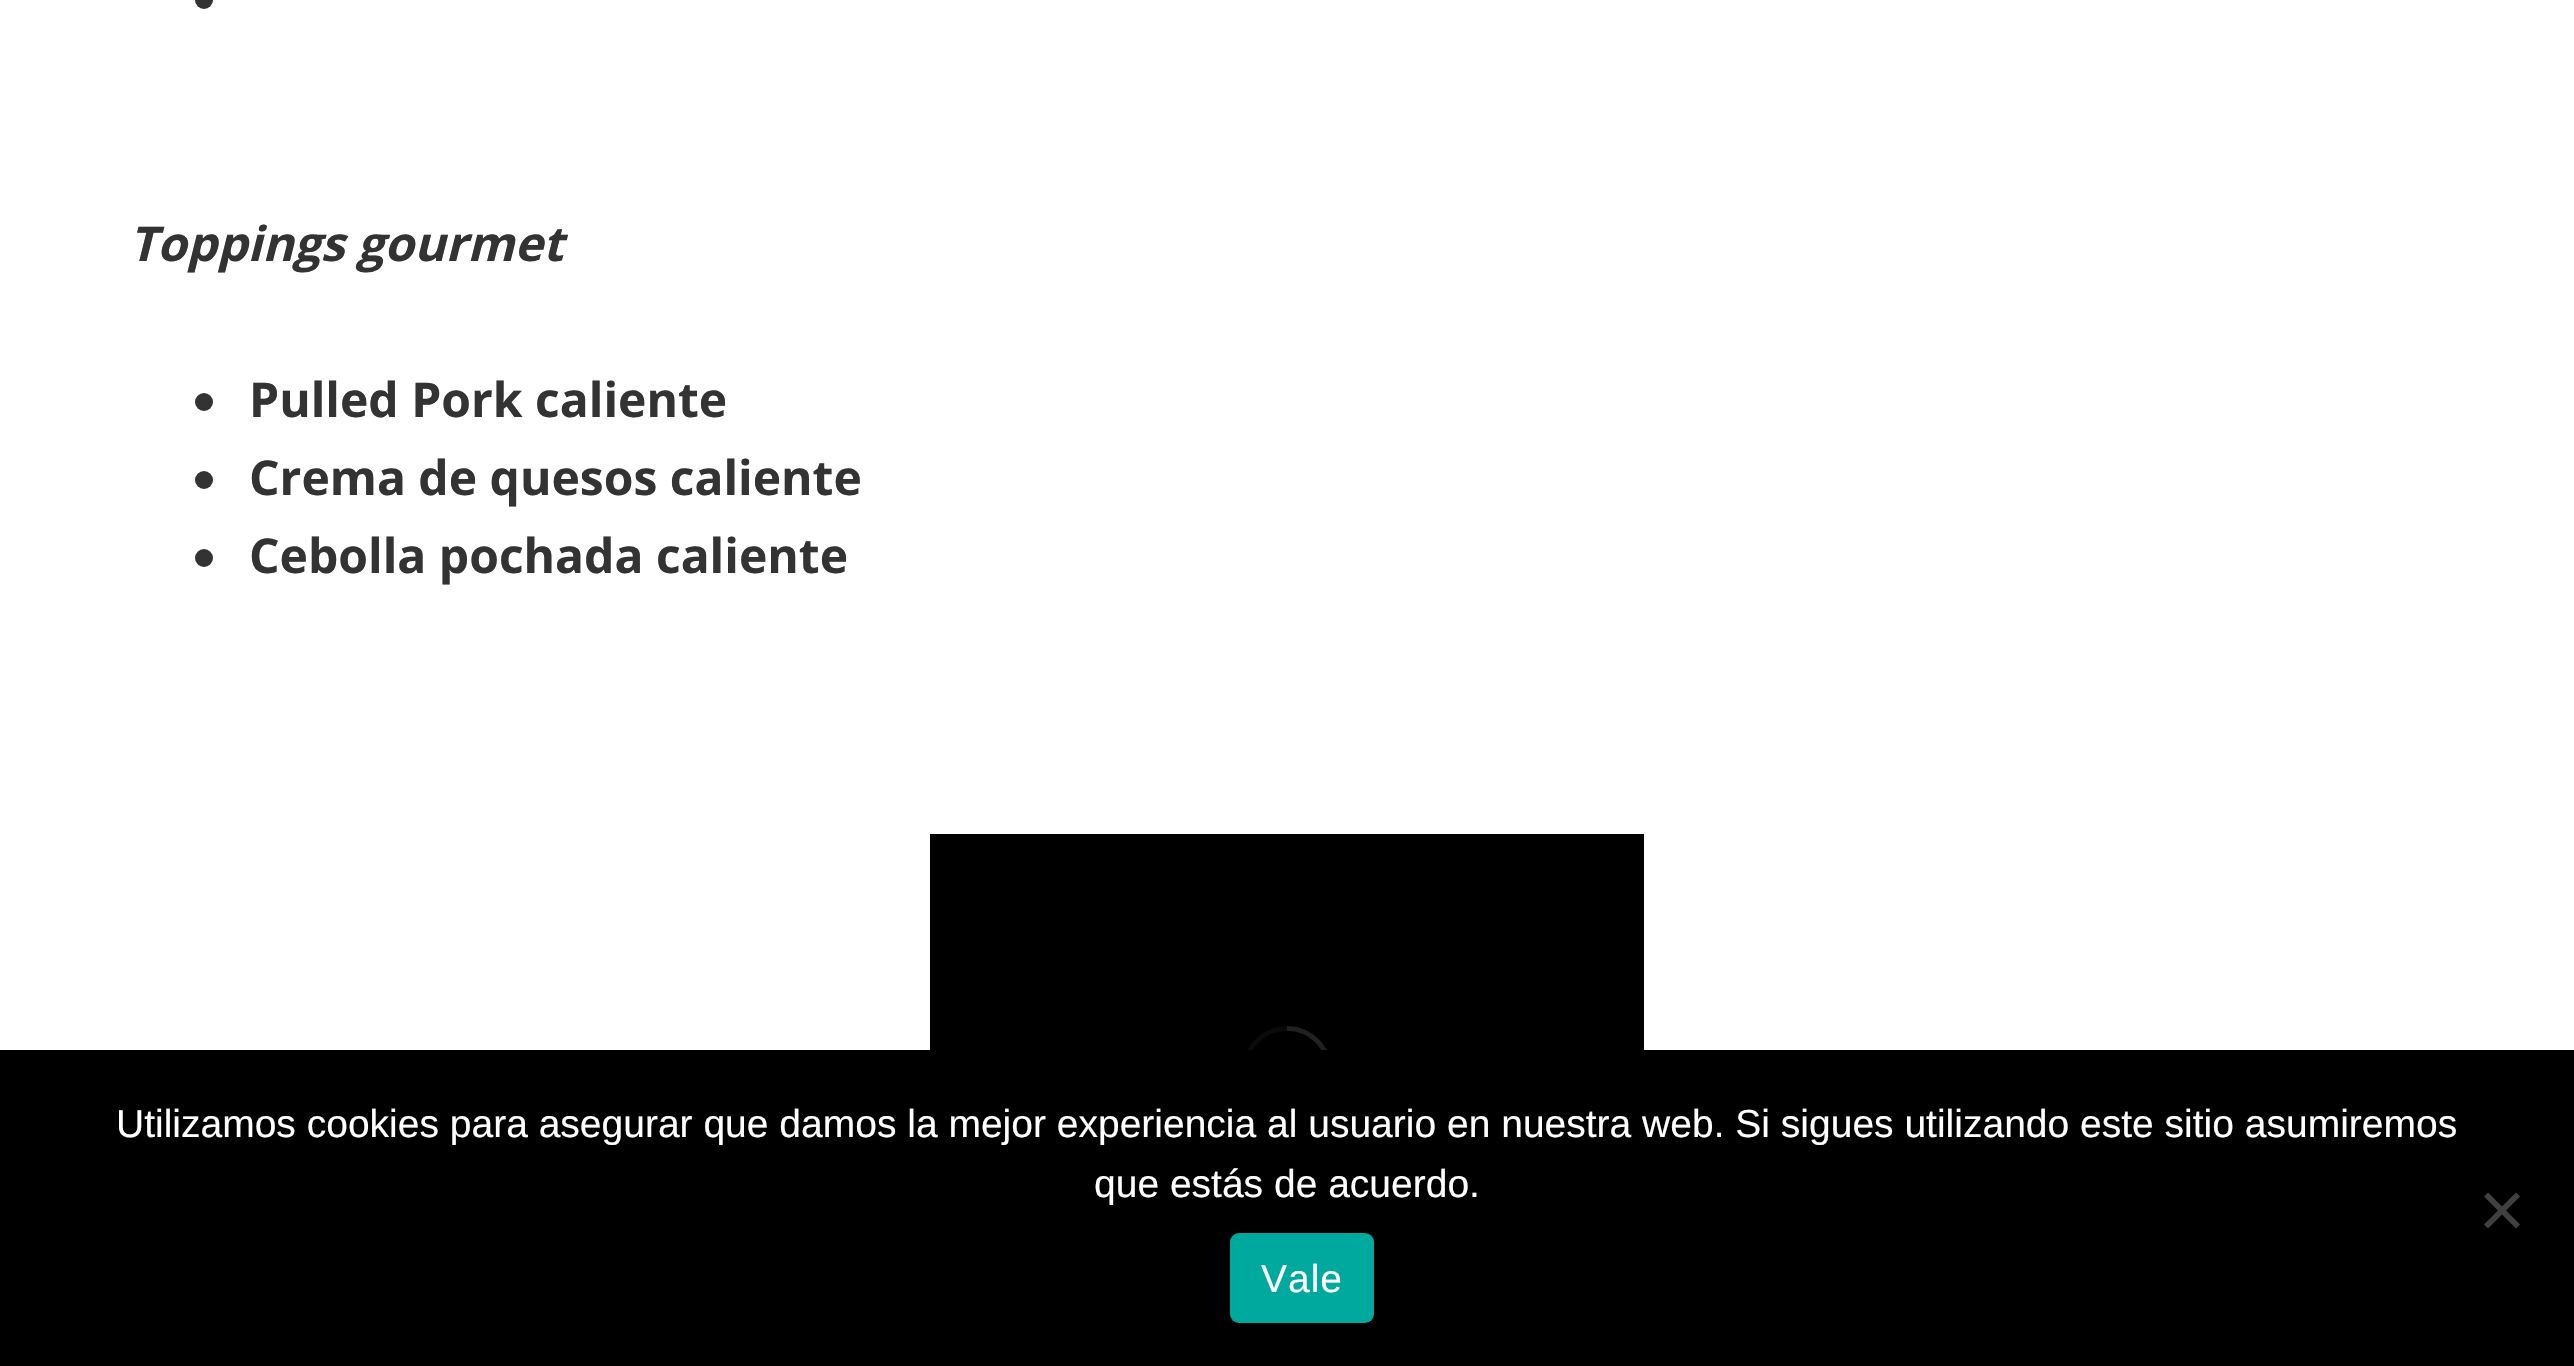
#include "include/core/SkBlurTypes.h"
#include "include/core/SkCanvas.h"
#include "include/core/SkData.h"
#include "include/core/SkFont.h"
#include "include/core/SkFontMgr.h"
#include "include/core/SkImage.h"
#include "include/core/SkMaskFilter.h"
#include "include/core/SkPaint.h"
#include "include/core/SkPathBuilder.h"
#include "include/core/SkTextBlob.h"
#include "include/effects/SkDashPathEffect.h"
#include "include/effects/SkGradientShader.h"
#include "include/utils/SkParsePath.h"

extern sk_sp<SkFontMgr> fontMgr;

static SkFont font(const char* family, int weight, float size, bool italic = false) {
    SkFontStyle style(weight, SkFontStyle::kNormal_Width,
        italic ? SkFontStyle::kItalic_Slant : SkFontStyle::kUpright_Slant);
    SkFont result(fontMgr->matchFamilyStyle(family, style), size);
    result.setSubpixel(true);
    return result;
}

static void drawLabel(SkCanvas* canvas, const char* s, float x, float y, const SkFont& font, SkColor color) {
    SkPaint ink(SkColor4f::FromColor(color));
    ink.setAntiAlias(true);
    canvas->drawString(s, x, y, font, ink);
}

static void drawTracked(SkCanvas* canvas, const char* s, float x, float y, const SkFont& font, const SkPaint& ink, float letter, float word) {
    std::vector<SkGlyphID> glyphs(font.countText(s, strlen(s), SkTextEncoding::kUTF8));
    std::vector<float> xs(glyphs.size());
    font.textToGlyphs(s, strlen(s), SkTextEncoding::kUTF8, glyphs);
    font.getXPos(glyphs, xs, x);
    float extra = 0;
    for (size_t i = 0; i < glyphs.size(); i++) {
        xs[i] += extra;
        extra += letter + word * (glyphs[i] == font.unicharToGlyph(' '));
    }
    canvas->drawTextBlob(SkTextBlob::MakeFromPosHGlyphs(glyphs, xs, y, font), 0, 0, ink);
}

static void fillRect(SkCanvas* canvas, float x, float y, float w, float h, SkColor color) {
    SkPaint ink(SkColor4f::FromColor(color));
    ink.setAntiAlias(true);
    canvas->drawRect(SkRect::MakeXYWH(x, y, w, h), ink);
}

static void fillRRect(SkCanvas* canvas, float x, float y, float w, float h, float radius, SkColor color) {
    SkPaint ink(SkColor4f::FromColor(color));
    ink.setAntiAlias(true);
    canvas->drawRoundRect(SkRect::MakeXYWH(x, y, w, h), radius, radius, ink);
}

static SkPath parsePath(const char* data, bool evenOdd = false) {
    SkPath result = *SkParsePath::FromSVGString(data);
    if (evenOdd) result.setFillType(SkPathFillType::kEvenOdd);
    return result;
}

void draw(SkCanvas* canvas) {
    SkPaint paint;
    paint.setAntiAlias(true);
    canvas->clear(0xFFFFFFFF);
    paint.setColor(0xFF333333);
    canvas->drawCircle(204, 0, 9, paint);
    SkFont font1 = font("Open Sans", 700, 48, true);
    drawLabel(canvas, "Toppings gourmet", 129, 261, font1, 0xFF333333);
    canvas->drawCircle(204, 402, 9, paint);
    SkFont font2 = font("Open Sans", 700, 48);
    drawLabel(canvas, "Pulled Pork caliente", 249, 417, font2, 0xFF333333);
    canvas->drawCircle(204, 480, 9, paint);
    drawLabel(canvas, "Crema de quesos caliente", 249, 495, font2, 0xFF333333);
    canvas->drawCircle(204, 558, 9, paint);
    drawLabel(canvas, "Cebolla pochada caliente", 249, 573, font2, 0xFF333333);
    fillRect(canvas, 930, 834, 714, 216, 0xFF000000);
    paint.setStroke(true);
    paint.setStrokeWidth(4.7f);
    paint.setColor(0xFF0A0A0A);
    canvas->drawCircle(1287, 1071, 42.5f, paint);
    paint.setColor(0xFF212121);
    canvas->drawPath(parsePath("M1329.5 1071C1329.5 1047.5 1310.5 1028.5 1287 1028.5"), paint);
    fillRect(canvas, 0, 1050, 2574, 316, 0xFF000000);
    SkFont font3 = font("Liberation Sans", 400, 39);
    drawLabel(canvas, "Utilizamos cookies para asegurar que damos la mejor experiencia al usuario en nuestra web. Si sigues utilizando este sitio asumiremos", 116, 1137, font3, 0xFFFFFFFF);
    drawLabel(canvas, "que estás de acuerdo.", 1094, 1197, font3, 0xFFFFFFFF);
    paint.setStroke(false);
    paint.setColor(0xFF404040);
    canvas->drawPath(parsePath("M2516 1192.5L2520 1196.5L2488 1228.5L2484 1224.5Z"), paint);
    canvas->drawPath(parsePath("M2484 1196.5L2488 1192.5L2520 1224.5L2516 1228.5Z"), paint);
    fillRRect(canvas, 1230, 1233, 144, 90, 9, 0xFF00A99D);
    paint.setColor(0xFFFFFFFF);
    drawTracked(canvas, "Vale", 1261, 1292, font3, paint, 1, 0);
}
